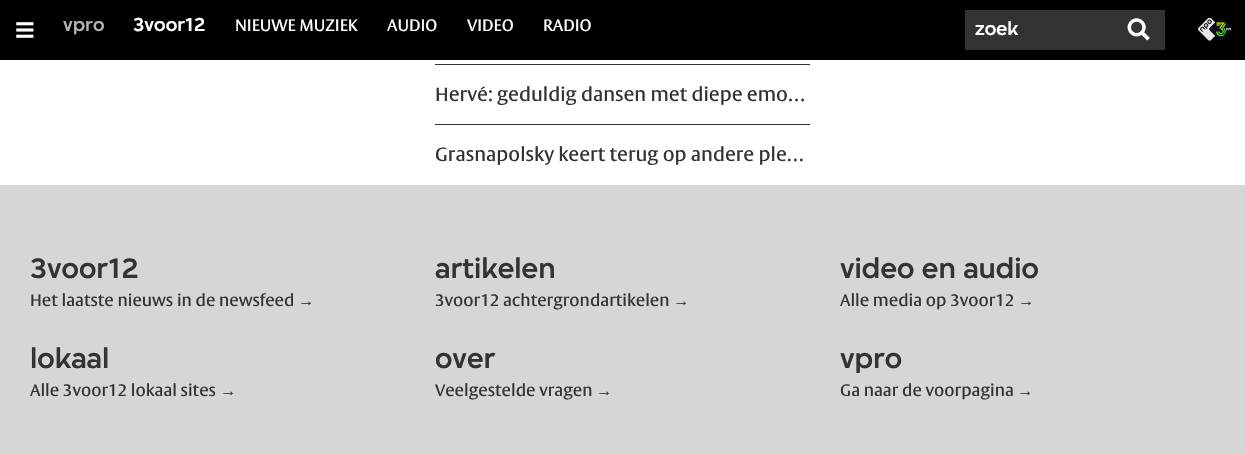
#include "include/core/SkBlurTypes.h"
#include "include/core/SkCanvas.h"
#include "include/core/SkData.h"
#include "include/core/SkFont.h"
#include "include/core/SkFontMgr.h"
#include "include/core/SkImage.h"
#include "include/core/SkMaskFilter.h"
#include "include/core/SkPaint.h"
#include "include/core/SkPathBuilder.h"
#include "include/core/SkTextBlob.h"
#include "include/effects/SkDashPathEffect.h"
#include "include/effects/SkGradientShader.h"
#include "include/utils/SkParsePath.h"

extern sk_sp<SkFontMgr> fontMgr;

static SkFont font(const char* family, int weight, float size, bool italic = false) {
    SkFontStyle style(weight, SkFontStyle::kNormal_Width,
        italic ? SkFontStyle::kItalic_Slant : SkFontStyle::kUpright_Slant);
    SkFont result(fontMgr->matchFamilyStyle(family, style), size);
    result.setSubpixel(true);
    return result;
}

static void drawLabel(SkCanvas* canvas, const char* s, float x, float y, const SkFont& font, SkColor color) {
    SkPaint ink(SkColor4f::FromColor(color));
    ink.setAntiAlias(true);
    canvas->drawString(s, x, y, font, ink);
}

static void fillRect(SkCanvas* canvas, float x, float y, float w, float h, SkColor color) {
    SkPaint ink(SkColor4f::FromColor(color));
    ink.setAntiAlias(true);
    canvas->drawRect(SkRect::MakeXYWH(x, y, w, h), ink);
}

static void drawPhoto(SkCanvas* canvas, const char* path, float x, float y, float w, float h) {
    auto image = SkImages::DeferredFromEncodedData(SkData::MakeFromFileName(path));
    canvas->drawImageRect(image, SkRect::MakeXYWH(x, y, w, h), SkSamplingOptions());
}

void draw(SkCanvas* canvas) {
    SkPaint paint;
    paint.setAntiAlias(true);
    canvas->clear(0xFFFFFFFF);
    fillRect(canvas, 0, 0, 1245, 60, 0xFF000000);
    drawPhoto(canvas, "assets/img1.png", 16, 22, 18, 16);
    SkFont font1 = font("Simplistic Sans", 500, 20);
    drawLabel(canvas, "vpro", 63, 31, font1, 0xFFB3B3B3);
    drawLabel(canvas, "3voor12", 133, 31, font1, 0xFFFFFFFF);
    SkFont font2 = font("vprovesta", 400, 16.25f);
    drawLabel(canvas, "NIEUWE MUZIEK", 235, 31, font2, 0xFFFFFFFF);
    drawLabel(canvas, "AUDIO", 387, 31, font2, 0xFFFFFFFF);
    drawLabel(canvas, "VIDEO", 467, 31, font2, 0xFFFFFFFF);
    drawLabel(canvas, "RADIO", 543, 31, font2, 0xFFFFFFFF);
    fillRect(canvas, 965, 10, 200, 40, 0xFF333333);
    drawLabel(canvas, "zoek", 975, 35, font1, 0xFFFFFFFF);
    drawPhoto(canvas, "assets/img2.png", 1127, 18, 23, 23);
    drawPhoto(canvas, "assets/img3.png", 1198, 18, 35, 23);
    fillRect(canvas, 435, 64, 375, 1, 0xFF333333);
    fillRect(canvas, 435, 124, 375, 1, 0xFF333333);
    SkFont font3 = font("vprovesta", 400, 18.75f);
    drawLabel(canvas, "Hervé: geduldig dansen met diepe emo…", 435, 101, font3, 0xFF333333);
    drawLabel(canvas, "Grasnapolsky keert terug op andere ple…", 435, 161, font3, 0xFF333333);
    fillRect(canvas, 0, 185, 1245, 269, 0xFFD6D6D6);
    SkFont font4 = font("Simplistic Sans", 500, 30);
    drawLabel(canvas, "3voor12", 30, 278, font4, 0xFF333333);
    drawLabel(canvas, "Het laatste nieuws in de newsfeed", 30, 306, font2, 0xFF333333);
    SkFont font5 = font("Liberation Sans", 400, 16.25f);
    drawLabel(canvas, "→", 298, 306, font5, 0xFF333333);
    drawLabel(canvas, "artikelen", 435, 278, font4, 0xFF333333);
    drawLabel(canvas, "3voor12 achtergrondartikelen", 435, 306, font2, 0xFF333333);
    drawLabel(canvas, "→", 673, 306, font5, 0xFF333333);
    drawLabel(canvas, "video en audio", 840, 278, font4, 0xFF333333);
    drawLabel(canvas, "Alle media op 3voor12", 840, 306, font2, 0xFF333333);
    drawLabel(canvas, "→", 1018, 306, font5, 0xFF333333);
    drawLabel(canvas, "lokaal", 30, 368, font4, 0xFF333333);
    drawLabel(canvas, "Alle 3voor12 lokaal sites", 30, 396, font2, 0xFF333333);
    drawLabel(canvas, "→", 220, 396, font5, 0xFF333333);
    drawLabel(canvas, "over", 435, 368, font4, 0xFF333333);
    drawLabel(canvas, "Veelgestelde vragen", 435, 396, font2, 0xFF333333);
    drawLabel(canvas, "→", 596, 396, font5, 0xFF333333);
    drawLabel(canvas, "vpro", 840, 368, font4, 0xFF333333);
    drawLabel(canvas, "Ga naar de voorpagina", 840, 396, font2, 0xFF333333);
    drawLabel(canvas, "→", 1017, 396, font5, 0xFF333333);
}
